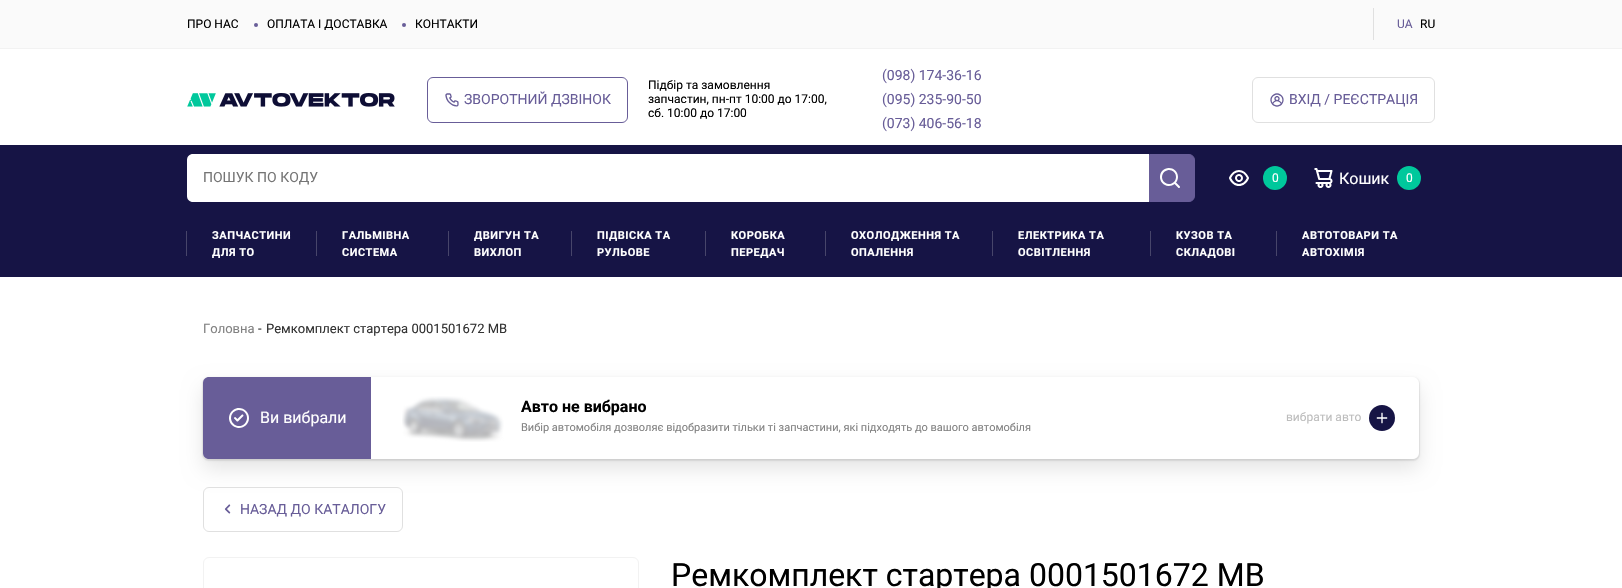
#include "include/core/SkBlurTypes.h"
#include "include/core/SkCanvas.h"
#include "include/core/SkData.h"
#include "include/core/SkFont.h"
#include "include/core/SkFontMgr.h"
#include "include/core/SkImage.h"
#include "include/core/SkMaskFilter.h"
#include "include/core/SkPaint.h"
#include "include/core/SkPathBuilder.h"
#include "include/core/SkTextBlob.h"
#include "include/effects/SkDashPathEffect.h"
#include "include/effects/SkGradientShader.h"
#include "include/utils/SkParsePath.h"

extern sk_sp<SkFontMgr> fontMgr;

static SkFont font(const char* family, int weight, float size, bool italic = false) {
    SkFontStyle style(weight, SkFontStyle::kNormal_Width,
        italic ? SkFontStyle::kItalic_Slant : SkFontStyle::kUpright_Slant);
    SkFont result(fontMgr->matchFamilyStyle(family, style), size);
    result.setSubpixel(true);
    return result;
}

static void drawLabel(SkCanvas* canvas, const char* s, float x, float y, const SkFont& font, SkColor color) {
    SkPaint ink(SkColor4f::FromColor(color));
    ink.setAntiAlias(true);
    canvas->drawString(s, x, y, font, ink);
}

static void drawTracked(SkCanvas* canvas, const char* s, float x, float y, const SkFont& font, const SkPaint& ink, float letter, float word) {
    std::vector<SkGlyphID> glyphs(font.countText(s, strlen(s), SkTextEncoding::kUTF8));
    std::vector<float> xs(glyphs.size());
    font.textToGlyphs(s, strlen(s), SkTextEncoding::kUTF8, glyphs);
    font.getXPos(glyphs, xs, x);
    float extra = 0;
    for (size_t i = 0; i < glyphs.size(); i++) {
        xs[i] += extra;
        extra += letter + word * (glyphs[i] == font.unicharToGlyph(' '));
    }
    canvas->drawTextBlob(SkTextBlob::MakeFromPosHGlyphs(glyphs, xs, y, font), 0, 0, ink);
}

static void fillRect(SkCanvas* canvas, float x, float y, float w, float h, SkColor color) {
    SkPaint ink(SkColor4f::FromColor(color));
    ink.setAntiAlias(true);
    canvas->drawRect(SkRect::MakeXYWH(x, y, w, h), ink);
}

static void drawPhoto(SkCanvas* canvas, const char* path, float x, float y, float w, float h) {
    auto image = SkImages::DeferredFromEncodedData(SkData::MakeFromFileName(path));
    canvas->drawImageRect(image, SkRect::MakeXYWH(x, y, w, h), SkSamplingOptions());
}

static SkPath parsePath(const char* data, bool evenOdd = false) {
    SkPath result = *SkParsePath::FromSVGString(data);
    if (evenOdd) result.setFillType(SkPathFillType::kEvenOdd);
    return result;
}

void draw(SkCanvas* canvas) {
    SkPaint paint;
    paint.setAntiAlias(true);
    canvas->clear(0xFFFFFFFF);
    fillRect(canvas, 0, 0, 1622, 48, 0xFFFAFAFA);
    fillRect(canvas, 0, 48, 1622, 1, 0xFFF2F2F2);
    SkFont font1 = font("Roboto", 400, 12);
    drawLabel(canvas, "ПРО НАС", 187, 28, font1, 0xFF000000);
    paint.setColor(0xFF685D98);
    canvas->drawCircle(256, 25, 2, paint);
    drawLabel(canvas, "ОПЛАТА І ДОСТАВКА", 267, 28, font1, 0xFF000000);
    canvas->drawCircle(404, 25, 2, paint);
    drawLabel(canvas, "КОНТАКТИ", 415, 28, font1, 0xFF000000);
    fillRect(canvas, 1373, 8, 1, 32, 0xFFE0E0E0);
    drawLabel(canvas, "UA", 1397, 28, font1, 0xFF685D98);
    drawLabel(canvas, "RU", 1420, 28, font1, 0xFF000000);
    drawPhoto(canvas, "assets/img1.png", 187, 93, 208, 14);
    paint.setStroke(true);
    paint.setStrokeWidth(1);
    canvas->drawRoundRect(SkRect::MakeXYWH(427.5f, 77.5f, 200, 45), 5.5f, 5.5f, paint);
    drawPhoto(canvas, "assets/img2.png", 445, 93, 14, 14);
    SkFont font2 = font("Roboto", 400, 14);
    drawLabel(canvas, "ЗВОРОТНИЙ ДЗВІНОК", 464, 104, font2, 0xFF685D98);
    drawLabel(canvas, "Підбір та замовлення", 648, 89, font1, 0xFF000000);
    drawLabel(canvas, "запчастин, пн-пт 10:00 до 17:00,", 648, 103, font1, 0xFF000000);
    drawLabel(canvas, "cб. 10:00 до 17:00", 648, 117, font1, 0xFF000000);
    drawLabel(canvas, "(098) 174-36-16", 882, 80, font2, 0xFF685D98);
    drawLabel(canvas, "(095) 235-90-50", 882, 104, font2, 0xFF685D98);
    drawLabel(canvas, "(073) 406-56-18", 882, 128, font2, 0xFF685D98);
    paint.setColor(0xFFE0E0E0);
    canvas->drawRoundRect(SkRect::MakeXYWH(1252.5f, 77.5f, 182, 45), 5.5f, 5.5f, paint);
    drawPhoto(canvas, "assets/img3.png", 1270, 93, 14, 14);
    drawLabel(canvas, "ВХІД / РЕЄСТРАЦІЯ", 1289, 104, font2, 0xFF685D98);
    fillRect(canvas, 0, 145, 1622, 132, 0xFF161445);
    paint.setStroke(false);
    paint.setColor(0xFFFFFFFF);
    canvas->drawPath(parsePath("M193 154H1149V202H193C189.5 202 187 199.5 187 196V160C187 156.5 189.5 154 193 154Z"), paint);
    drawLabel(canvas, "ПОШУК ПО КОДУ", 203, 182, font2, 0xFF757575);
    paint.setColor(0xFF685D98);
    canvas->drawPath(parsePath("M1149.5 154.5H1189C1192 154.5 1194.5 157 1194.5 160V196C1194.5 199 1192 201.5 1189 201.5H1149.5Z"), paint);
    paint.setStroke(true);
    canvas->drawPath(parsePath("M1149.5 154.5H1189C1192 154.5 1194.5 157 1194.5 160V196C1194.5 199 1192 201.5 1189 201.5H1149.5Z"), paint);
    drawPhoto(canvas, "assets/img4.png", 1160, 168, 20, 20);
    drawPhoto(canvas, "assets/img5.png", 1229, 170, 20, 16);
    paint.setStroke(false);
    paint.setColor(0xFF00C89C);
    canvas->drawCircle(1275, 178, 12, paint);
    drawLabel(canvas, "0", 1272, 182, font1, 0xFFFFFFFF);
    drawPhoto(canvas, "assets/img6.png", 1314, 168, 19, 20);
    SkFont font3 = font("Roboto", 400, 16);
    drawLabel(canvas, "Кошик", 1339, 184, font3, 0xFFFFFFFF);
    canvas->drawCircle(1409, 178, 12, paint);
    drawLabel(canvas, "0", 1406, 182, font1, 0xFFFFFFFF);
    fillRect(canvas, 186, 231, 1, 25, 0xFF47456A);
    SkFont font4 = font("Roboto", 700, 11);
    paint.setColor(0xFFFFFFFF);
    drawTracked(canvas, "ЗАПЧАСТИНИ", 212, 239, font4, paint, 0.5f, 0);
    drawTracked(canvas, "ДЛЯ ТО", 212, 256, font4, paint, 0.5f, 0);
    fillRect(canvas, 316, 231, 1, 25, 0xFF47456A);
    drawTracked(canvas, "ГАЛЬМІВНА", 342, 239, font4, paint, 0.5f, 0);
    drawTracked(canvas, "СИСТЕМА", 342, 256, font4, paint, 0.5f, 0);
    fillRect(canvas, 448, 231, 1, 25, 0xFF47456A);
    drawTracked(canvas, "ДВИГУН ТА", 474, 239, font4, paint, 0.5f, 0);
    drawTracked(canvas, "ВИХЛОП", 474, 256, font4, paint, 0.5f, 0);
    fillRect(canvas, 571, 231, 1, 25, 0xFF47456A);
    drawTracked(canvas, "ПІДВІСКА ТА", 597, 239, font4, paint, 0.5f, 0);
    drawTracked(canvas, "РУЛЬОВЕ", 597, 256, font4, paint, 0.5f, 0);
    fillRect(canvas, 705, 231, 1, 25, 0xFF47456A);
    drawTracked(canvas, "КОРОБКА", 731, 239, font4, paint, 0.5f, 0);
    drawTracked(canvas, "ПЕРЕДАЧ", 731, 256, font4, paint, 0.5f, 0);
    fillRect(canvas, 825, 231, 1, 25, 0xFF47456A);
    drawTracked(canvas, "ОХОЛОДЖЕННЯ ТА", 851, 239, font4, paint, 0.5f, 0);
    drawTracked(canvas, "ОПАЛЕННЯ", 851, 256, font4, paint, 0.5f, 0);
    fillRect(canvas, 992, 231, 1, 25, 0xFF47456A);
    drawTracked(canvas, "ЕЛЕКТРИКА ТА", 1018, 239, font4, paint, 0.5f, 0);
    drawTracked(canvas, "ОСВІТЛЕННЯ", 1018, 256, font4, paint, 0.5f, 0);
    fillRect(canvas, 1150, 231, 1, 25, 0xFF47456A);
    drawTracked(canvas, "КУЗОВ ТА", 1176, 239, font4, paint, 0.5f, 0);
    drawTracked(canvas, "СКЛАДОВІ", 1176, 256, font4, paint, 0.5f, 0);
    fillRect(canvas, 1276, 231, 1, 25, 0xFF47456A);
    drawTracked(canvas, "АВТОТОВАРИ ТА", 1302, 239, font4, paint, 0.5f, 0);
    drawTracked(canvas, "АВТОХІМІЯ", 1302, 256, font4, paint, 0.5f, 0);
    SkFont font5 = font("Roboto", 400, 13);
    drawLabel(canvas, "Головна", 203, 333, font5, 0xFF828282);
    drawLabel(canvas, "-", 258, 333, font5, 0xFF333333);
    drawLabel(canvas, "Ремкомплект стартера 0001501672 MB", 266, 333, font5, 0xFF333333);
    canvas->save();
    canvas->clipPath(parsePath("M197 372H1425V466H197ZM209 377H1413C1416.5 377 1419 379.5 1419 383V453C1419 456.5 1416.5 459 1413 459H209C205.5 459 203 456.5 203 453V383C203 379.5 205.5 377 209 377Z", true), true);
    paint.setColor(0x1A000000);
    paint.setMaskFilter(SkMaskFilter::MakeBlur(kNormal_SkBlurStyle, 1.5f));
    canvas->drawRoundRect(SkRect::MakeXYWH(203, 378, 1216, 82), 6, 6, paint);
    paint.setMaskFilter(nullptr);
    canvas->restore();
    canvas->save();
    canvas->clipPath(parsePath("M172 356H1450V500H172ZM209 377H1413C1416.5 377 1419 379.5 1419 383V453C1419 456.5 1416.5 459 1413 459H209C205.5 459 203 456.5 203 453V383C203 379.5 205.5 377 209 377Z", true), true);
    paint.setMaskFilter(SkMaskFilter::MakeBlur(kNormal_SkBlurStyle, 10));
    canvas->drawRoundRect(SkRect::MakeXYWH(203, 387, 1216, 82), 6, 6, paint);
    paint.setMaskFilter(nullptr);
    canvas->restore();
    paint.setColor(0x0A000000);
    canvas->drawPath(parsePath("M209 377C205 377 202 380 202 384V454C202 458 205 461 209 461H1413C1417 461 1420 458 1420 454V384C1420 380 1417 377 1413 377C1416 377 1419 380 1419 383V453C1419 456 1416 459 1413 459H209C206 459 203 456 203 453V383C203 380 206 377 209 377Z"), paint);
    paint.setColor(0xFF685D98);
    canvas->drawPath(parsePath("M209 377H371V459H209C205.5 459 203 456.5 203 453V383C203 379.5 205.5 377 209 377Z"), paint);
    drawPhoto(canvas, "assets/img7.png", 229, 408, 20, 20);
    drawLabel(canvas, "Ви вибрали", 260, 423, font3, 0xFFFFFFFF);
    drawPhoto(canvas, "assets/img8.png", 402, 396, 102, 46);
    SkFont font6 = font("Roboto", 700, 16);
    drawLabel(canvas, "Авто не вибрано", 521, 412, font6, 0xFF000000);
    SkFont font7 = font("Roboto", 400, 11);
    drawLabel(canvas, "Вибір автомобіля дозволяє відобразити тільки ті запчастини, які підходять до вашого автомобіля", 521, 431, font7, 0xFF828282);
    drawLabel(canvas, "вибрати авто", 1286, 421, font1, 0xFFBDBDBD);
    paint.setColor(0xFF161445);
    canvas->drawCircle(1382, 418, 13, paint);
    drawPhoto(canvas, "assets/img9.png", 1376, 412, 12, 12);
    paint.setStroke(true);
    paint.setColor(0xFFE0E0E0);
    canvas->drawRoundRect(SkRect::MakeXYWH(203.5f, 487.5f, 199, 44), 5.5f, 5.5f, paint);
    drawPhoto(canvas, "assets/img10.png", 224, 504, 7, 10);
    drawLabel(canvas, "НАЗАД ДО КАТАЛОГУ", 240, 514, font2, 0xFF685D98);
    paint.setColor(0xFFF2F2F2);
    canvas->drawRoundRect(SkRect::MakeXYWH(203.5f, 557.5f, 435, 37), 5.5f, 5.5f, paint);
    SkFont font8 = font("Roboto", 400, 32);
    drawLabel(canvas, "Ремкомплект стартера 0001501672 MB", 671, 586, font8, 0xFF000000);
}
